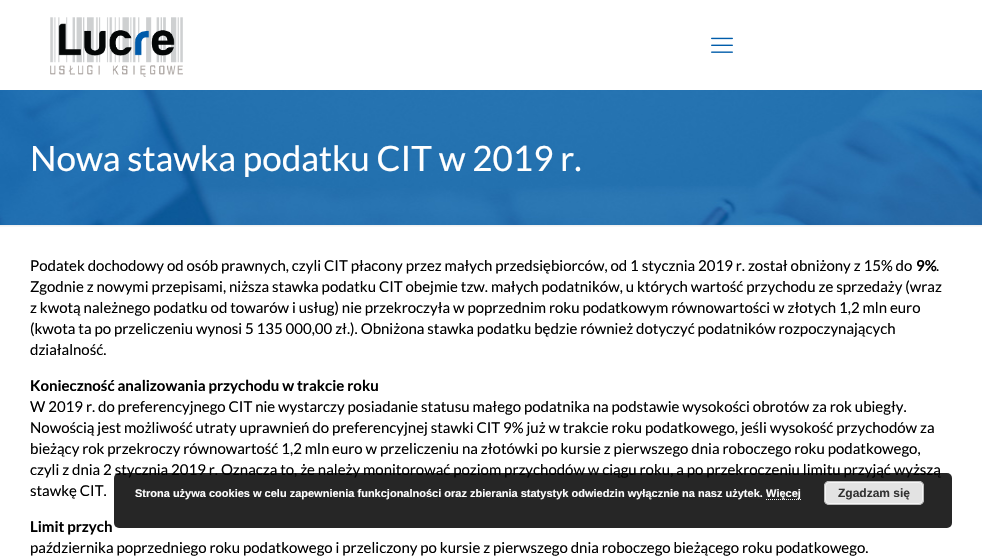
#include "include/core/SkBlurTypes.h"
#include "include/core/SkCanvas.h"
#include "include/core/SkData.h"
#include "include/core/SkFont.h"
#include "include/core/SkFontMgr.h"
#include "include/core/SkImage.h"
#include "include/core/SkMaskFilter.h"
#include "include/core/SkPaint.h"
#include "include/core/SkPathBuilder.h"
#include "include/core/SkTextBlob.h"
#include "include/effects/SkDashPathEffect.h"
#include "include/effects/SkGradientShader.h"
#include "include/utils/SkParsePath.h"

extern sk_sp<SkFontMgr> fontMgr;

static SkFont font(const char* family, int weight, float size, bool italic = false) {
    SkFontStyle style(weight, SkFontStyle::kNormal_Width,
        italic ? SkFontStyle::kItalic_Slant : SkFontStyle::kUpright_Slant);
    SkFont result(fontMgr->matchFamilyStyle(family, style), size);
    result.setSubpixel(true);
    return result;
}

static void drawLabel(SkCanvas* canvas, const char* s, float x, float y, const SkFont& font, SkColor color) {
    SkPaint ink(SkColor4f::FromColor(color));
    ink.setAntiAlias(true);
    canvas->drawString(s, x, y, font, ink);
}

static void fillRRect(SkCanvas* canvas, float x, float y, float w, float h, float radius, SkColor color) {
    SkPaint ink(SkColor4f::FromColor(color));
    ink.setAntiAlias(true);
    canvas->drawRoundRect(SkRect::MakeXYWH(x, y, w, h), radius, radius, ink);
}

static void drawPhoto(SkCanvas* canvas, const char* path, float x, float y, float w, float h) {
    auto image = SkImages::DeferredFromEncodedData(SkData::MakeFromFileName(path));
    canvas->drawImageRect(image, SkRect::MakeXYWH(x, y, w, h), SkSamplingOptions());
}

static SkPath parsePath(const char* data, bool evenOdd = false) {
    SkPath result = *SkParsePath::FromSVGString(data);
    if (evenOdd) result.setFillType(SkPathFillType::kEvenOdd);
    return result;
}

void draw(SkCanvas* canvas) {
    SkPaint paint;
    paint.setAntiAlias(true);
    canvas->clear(0xFFFFFFFF);
    drawPhoto(canvas, "assets/img1.png", 50, 17, 133, 60);
    drawPhoto(canvas, "assets/img2.png", 711, 37, 22, 16);
    drawPhoto(canvas, "assets/img3.png", 0, 90, 982, 135);
    SkFont font1 = font("Lato", 400, 35);
    drawLabel(canvas, "Nowa stawka podatku CIT w 2019 r.", 30, 171, font1, 0xFFFFFFFF);
    drawPhoto(canvas, "assets/img4.png", 0, 225, 982, 2);
    SkFont font2 = font("Lato", 400, 15);
    drawLabel(canvas, "Podatek dochodowy od osób prawnych, czyli CIT płacony przez małych przedsiębiorców, od 1 stycznia 2019 r. został obniżony z 15% do", 30, 271, font2, 0xFF000000);
    SkFont font3 = font("Lato", 700, 15);
    drawLabel(canvas, "9%", 916, 271, font3, 0xFF000000);
    drawLabel(canvas, ".", 936, 271, font2, 0xFF000000);
    drawLabel(canvas, "Zgodnie z nowymi przepisami, niższa stawka podatku CIT obejmie tzw. małych podatników, u których wartość przychodu ze sprzedaży (wraz", 30, 292, font2, 0xFF000000);
    drawLabel(canvas, "z kwotą należnego podatku od towarów i usług) nie przekroczyła w poprzednim roku podatkowym równowartości w złotych 1,2 mln euro", 30, 313, font2, 0xFF000000);
    drawLabel(canvas, "(kwota ta po przeliczeniu wynosi 5 135 000,00 zł.). Obniżona stawka podatku będzie również dotyczyć podatników rozpoczynających", 30, 334, font2, 0xFF000000);
    drawLabel(canvas, "działalność.", 30, 355, font2, 0xFF000000);
    drawLabel(canvas, "Konieczność analizowania przychodu w trakcie roku", 30, 391, font3, 0xFF000000);
    drawLabel(canvas, "W 2019 r. do preferencyjnego CIT nie wystarczy posiadanie statusu małego podatnika na podstawie wysokości obrotów za rok ubiegły.", 30, 412, font2, 0xFF000000);
    drawLabel(canvas, "Nowością jest możliwość utraty uprawnień do preferencyjnej stawki CIT 9% już w trakcie roku podatkowego, jeśli wysokość przychodów za", 30, 433, font2, 0xFF000000);
    drawLabel(canvas, "bieżący rok przekroczy równowartość 1,2 mln euro w przeliczeniu na złotówki po kursie z pierwszego dnia roboczego roku podatkowego,", 30, 454, font2, 0xFF000000);
    drawLabel(canvas, "czyli z dnia 2 stycznia 2019 r. Oznacza to, że należy monitorować poziom przychodów w ciągu roku, a po przekroczeniu limitu przyjąć wyższą", 30, 475, font2, 0xFF000000);
    drawLabel(canvas, "stawkę CIT.", 30, 496, font2, 0xFF000000);
    drawLabel(canvas, "Limit przych", 30, 532, font3, 0xFF000000);
    drawLabel(canvas, "października poprzedniego roku podatkowego i przeliczony po kursie z pierwszego dnia roboczego bieżącego roku podatkowego.", 30, 553, font2, 0xFF000000);
    fillRRect(canvas, 114, 473, 838, 55, 5, 0xD9000000);
    SkFont font4 = font("Liberation Sans", 700, 11);
    drawLabel(canvas, "Strona używa cookies w celu zapewnienia funkcjonalności oraz zbierania statystyk odwiedzin wyłącznie na nasz użytek.", 135, 497, font4, 0xFFFFFFFF);
    paint.setStroke(true);
    paint.setStrokeWidth(1);
    paint.setColor(0xFFFFFFFF);
    paint.setPathEffect(SkDashPathEffect::Make({{1, 1}}, 0));
    canvas->drawPath(parsePath("M766 499.5H801"), paint);
    paint.setPathEffect(nullptr);
    drawLabel(canvas, "Więcej", 766, 497, font4, 0xFFFFFFFF);
    fillRRect(canvas, 824, 481, 100, 24, 5, 0xFFE3E3E3);
    paint.setColor(0xFFF6F6F6);
    canvas->drawRoundRect(SkRect::MakeXYWH(825.5f, 482.5f, 97, 21), 3.5f, 3.5f, paint);
    paint.setColor(0xFFBBBBBB);
    canvas->drawRoundRect(SkRect::MakeXYWH(824.5f, 481.5f, 99, 23), 4.5f, 4.5f, paint);
    SkFont font5 = font("Liberation Sans", 700, 12);
    drawLabel(canvas, "Zgadzam się", 838, 497, font5, 0xFF333333);
}
